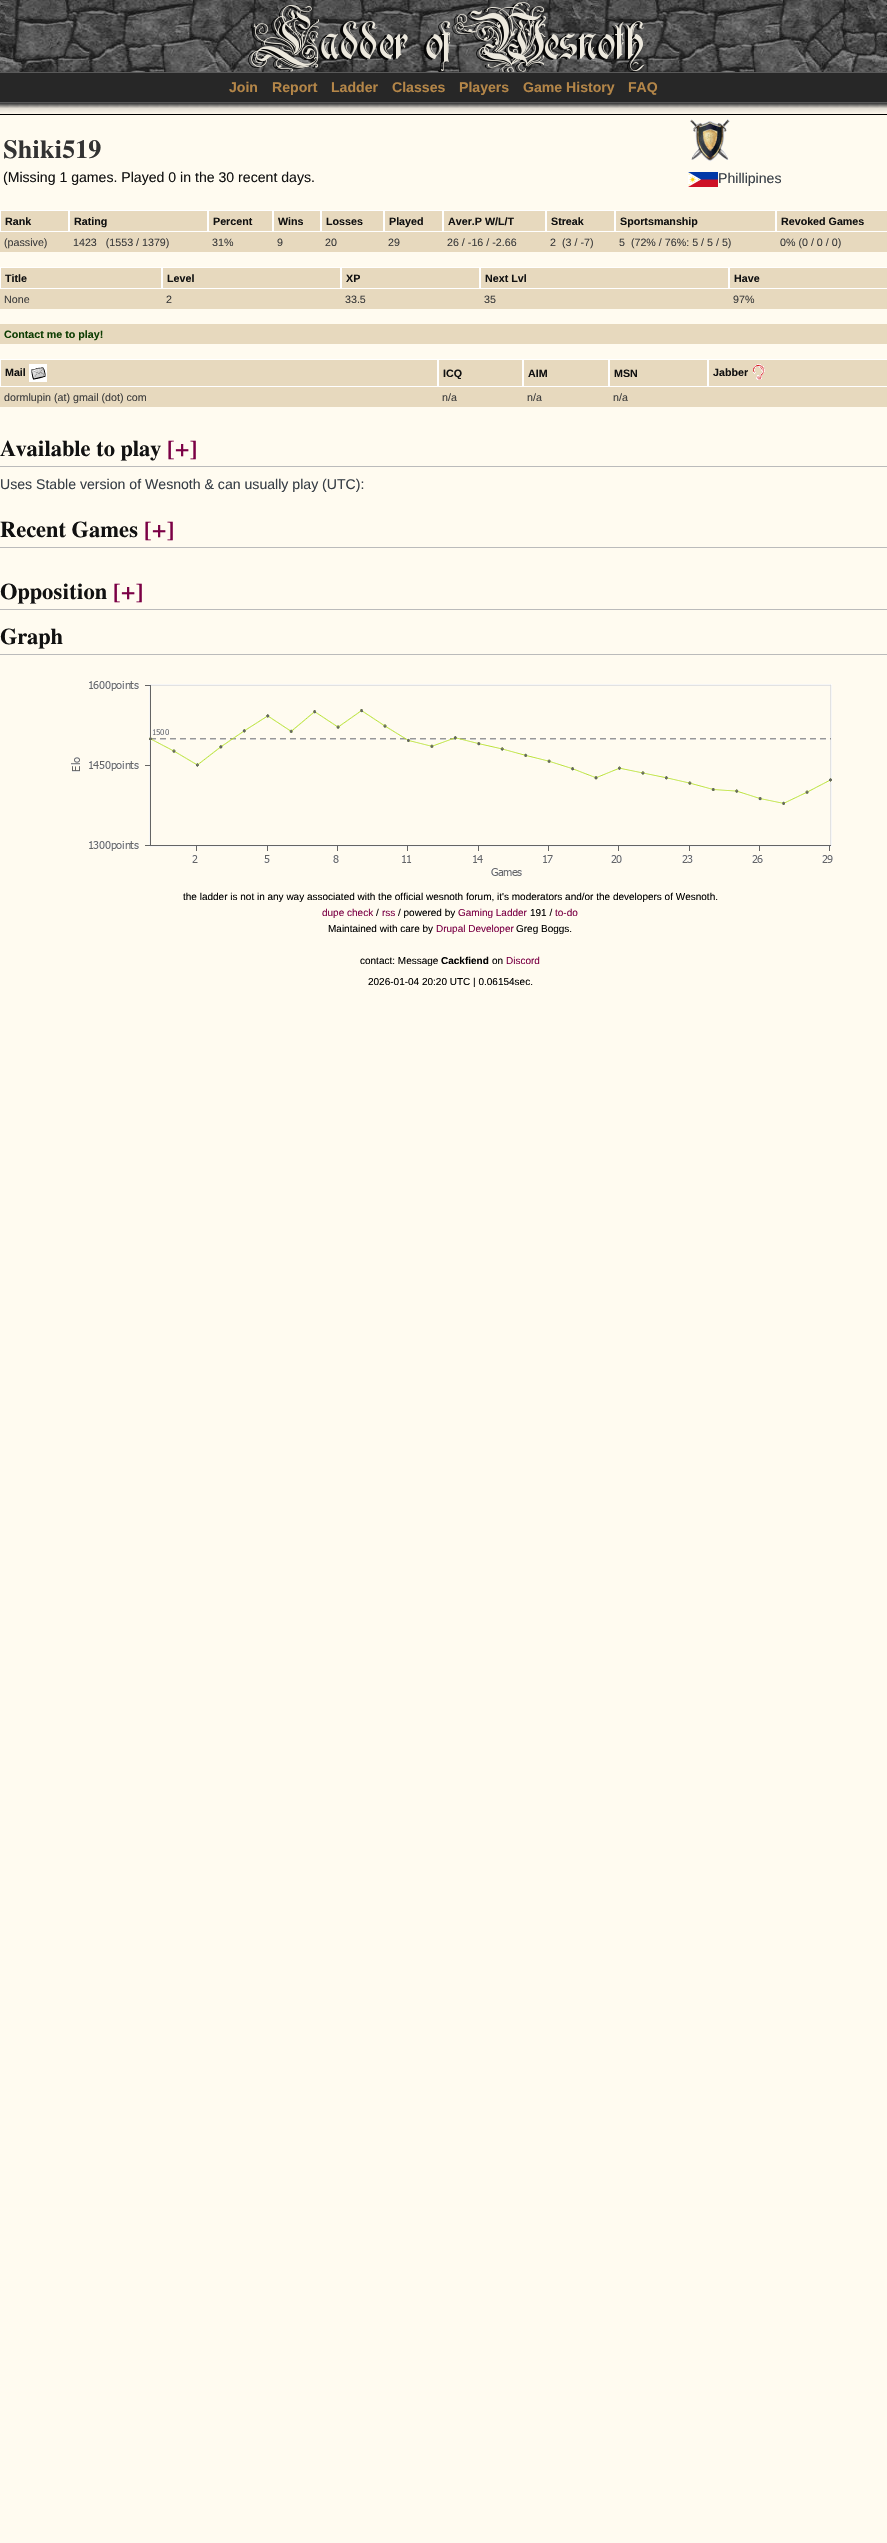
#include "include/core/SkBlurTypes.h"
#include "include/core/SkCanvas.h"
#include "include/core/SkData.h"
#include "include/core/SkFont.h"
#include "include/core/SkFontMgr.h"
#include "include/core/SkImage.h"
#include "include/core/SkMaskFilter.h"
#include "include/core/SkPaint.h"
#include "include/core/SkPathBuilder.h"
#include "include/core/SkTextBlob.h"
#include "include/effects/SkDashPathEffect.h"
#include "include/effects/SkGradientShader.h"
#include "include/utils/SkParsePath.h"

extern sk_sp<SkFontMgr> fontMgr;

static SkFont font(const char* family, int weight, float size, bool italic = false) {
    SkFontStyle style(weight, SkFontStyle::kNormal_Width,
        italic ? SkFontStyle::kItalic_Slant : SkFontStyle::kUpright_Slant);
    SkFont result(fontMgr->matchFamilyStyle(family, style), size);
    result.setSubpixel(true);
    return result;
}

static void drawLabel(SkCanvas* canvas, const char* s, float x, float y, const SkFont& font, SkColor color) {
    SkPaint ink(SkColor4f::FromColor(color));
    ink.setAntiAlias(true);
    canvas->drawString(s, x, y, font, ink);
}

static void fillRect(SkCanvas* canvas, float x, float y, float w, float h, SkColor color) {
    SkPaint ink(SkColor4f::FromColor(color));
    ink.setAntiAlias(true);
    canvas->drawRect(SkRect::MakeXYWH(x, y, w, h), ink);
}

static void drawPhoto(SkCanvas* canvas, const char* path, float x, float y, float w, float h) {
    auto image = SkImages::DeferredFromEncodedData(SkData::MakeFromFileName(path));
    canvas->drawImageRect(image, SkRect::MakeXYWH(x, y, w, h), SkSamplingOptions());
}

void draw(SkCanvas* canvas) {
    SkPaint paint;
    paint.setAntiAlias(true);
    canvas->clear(0xFFFFFBF0);
    drawPhoto(canvas, "assets/img1.png", 0, 0, 887, 72);
    fillRect(canvas, 0, 114, 887, 1, 0xFF000000);
    drawPhoto(canvas, "assets/img2.png", 248, 2, 396, 70);
    fillRect(canvas, 0, 73, 887, 29, 0xFF272727);
    drawPhoto(canvas, "assets/img3.png", 0, 102, 887, 12);
    fillRect(canvas, 0, 72, 887, 1, 0xFF595959);
    SkFont font1 = font("Liberation Sans", 700, 14.1f);
    drawLabel(canvas, "Join", 229, 92, font1, 0xFFB48648);
    drawLabel(canvas, "Report", 272, 92, font1, 0xFFB48648);
    drawLabel(canvas, "Ladder", 331, 92, font1, 0xFFB48648);
    drawLabel(canvas, "Classes", 392, 92, font1, 0xFFB48648);
    drawLabel(canvas, "Players", 459, 92, font1, 0xFFB48648);
    drawLabel(canvas, "Game History", 523, 92, font1, 0xFFB48648);
    drawLabel(canvas, "FAQ", 628, 92, font1, 0xFFB48648);
    SkFont font2 = font("FreeSerif", 700, 26);
    drawLabel(canvas, "Shiki519", 3, 158, font2, 0xFF333333);
    SkFont font3 = font("Liberation Sans", 400, 14.1f);
    drawLabel(canvas, "(Missing 1 games. Played 0 in the 30 recent days.", 3, 182, font3, 0xFF111111);
    drawPhoto(canvas, "assets/img4.png", 690, 119, 40, 43);
    drawPhoto(canvas, "assets/img5.png", 688, 172, 30, 15);
    drawLabel(canvas, "Phillipines", 718, 183, font3, 0xFF373E46);
    paint.setColor(0xFFE7D9BE);
    canvas->drawRect(SkRect::MakeXYWH(0.5f, 210.5f, 68, 21), paint);
    paint.setStroke(true);
    paint.setStrokeWidth(1);
    paint.setColor(0xFFFFFFFF);
    canvas->drawRect(SkRect::MakeXYWH(0.5f, 210.5f, 68, 21), paint);
    SkFont font4 = font("Liberation Sans", 700, 10.7f);
    drawLabel(canvas, "Rank", 5, 225, font4, 0xFF111111);
    paint.setStroke(false);
    paint.setColor(0xFFE7D9BE);
    canvas->drawRect(SkRect::MakeXYWH(69.5f, 210.5f, 138, 21), paint);
    paint.setStroke(true);
    paint.setColor(0xFFFFFFFF);
    canvas->drawRect(SkRect::MakeXYWH(69.5f, 210.5f, 138, 21), paint);
    drawLabel(canvas, "Rating", 74, 225, font4, 0xFF111111);
    paint.setStroke(false);
    paint.setColor(0xFFE7D9BE);
    canvas->drawRect(SkRect::MakeXYWH(208.5f, 210.5f, 64, 21), paint);
    paint.setStroke(true);
    paint.setColor(0xFFFFFFFF);
    canvas->drawRect(SkRect::MakeXYWH(208.5f, 210.5f, 64, 21), paint);
    drawLabel(canvas, "Percent", 213, 225, font4, 0xFF111111);
    paint.setStroke(false);
    paint.setColor(0xFFE7D9BE);
    canvas->drawRect(SkRect::MakeXYWH(273.5f, 210.5f, 47, 21), paint);
    paint.setStroke(true);
    paint.setColor(0xFFFFFFFF);
    canvas->drawRect(SkRect::MakeXYWH(273.5f, 210.5f, 47, 21), paint);
    drawLabel(canvas, "Wins", 278, 225, font4, 0xFF111111);
    paint.setStroke(false);
    paint.setColor(0xFFE7D9BE);
    canvas->drawRect(SkRect::MakeXYWH(321.5f, 210.5f, 62, 21), paint);
    paint.setStroke(true);
    paint.setColor(0xFFFFFFFF);
    canvas->drawRect(SkRect::MakeXYWH(321.5f, 210.5f, 62, 21), paint);
    drawLabel(canvas, "Losses", 326, 225, font4, 0xFF111111);
    paint.setStroke(false);
    paint.setColor(0xFFE7D9BE);
    canvas->drawRect(SkRect::MakeXYWH(384.5f, 210.5f, 58, 21), paint);
    paint.setStroke(true);
    paint.setColor(0xFFFFFFFF);
    canvas->drawRect(SkRect::MakeXYWH(384.5f, 210.5f, 58, 21), paint);
    drawLabel(canvas, "Played", 389, 225, font4, 0xFF111111);
    paint.setStroke(false);
    paint.setColor(0xFFE7D9BE);
    canvas->drawRect(SkRect::MakeXYWH(443.5f, 210.5f, 102, 21), paint);
    paint.setStroke(true);
    paint.setColor(0xFFFFFFFF);
    canvas->drawRect(SkRect::MakeXYWH(443.5f, 210.5f, 102, 21), paint);
    drawLabel(canvas, "Aver.P W/L/T", 448, 225, font4, 0xFF111111);
    paint.setStroke(false);
    paint.setColor(0xFFE7D9BE);
    canvas->drawRect(SkRect::MakeXYWH(546.5f, 210.5f, 68, 21), paint);
    paint.setStroke(true);
    paint.setColor(0xFFFFFFFF);
    canvas->drawRect(SkRect::MakeXYWH(546.5f, 210.5f, 68, 21), paint);
    drawLabel(canvas, "Streak", 551, 225, font4, 0xFF111111);
    paint.setStroke(false);
    paint.setColor(0xFFE7D9BE);
    canvas->drawRect(SkRect::MakeXYWH(615.5f, 210.5f, 160, 21), paint);
    paint.setStroke(true);
    paint.setColor(0xFFFFFFFF);
    canvas->drawRect(SkRect::MakeXYWH(615.5f, 210.5f, 160, 21), paint);
    drawLabel(canvas, "Sportsmanship", 620, 225, font4, 0xFF111111);
    paint.setStroke(false);
    paint.setColor(0xFFE7D9BE);
    canvas->drawRect(SkRect::MakeXYWH(776.5f, 210.5f, 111, 21), paint);
    paint.setStroke(true);
    paint.setColor(0xFFFFFFFF);
    canvas->drawRect(SkRect::MakeXYWH(776.5f, 210.5f, 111, 21), paint);
    drawLabel(canvas, "Revoked Games", 781, 225, font4, 0xFF111111);
    fillRect(canvas, 0, 232, 887, 20, 0xFFE7D9BE);
    SkFont font5 = font("Liberation Sans", 400, 10.7f);
    drawLabel(canvas, "(passive)", 4, 246, font5, 0xFF3D3D3D);
    drawLabel(canvas, "1423   (1553 / 1379)", 73, 246, font5, 0xFF3D3D3D);
    drawLabel(canvas, "31%", 212, 246, font5, 0xFF3D3D3D);
    drawLabel(canvas, "9", 277, 246, font5, 0xFF3D3D3D);
    drawLabel(canvas, "20", 325, 246, font5, 0xFF3D3D3D);
    drawLabel(canvas, "29", 388, 246, font5, 0xFF3D3D3D);
    drawLabel(canvas, "26 / -16 / -2.66", 447, 246, font5, 0xFF3D3D3D);
    drawLabel(canvas, "2", 550, 246, font5, 0xFF3D3D3D);
    drawLabel(canvas, "(3 / -7)", 562, 246, font5, 0xFF3D3D3D);
    drawLabel(canvas, "5  (72% / 76%: 5 / 5 / 5)", 619, 246, font5, 0xFF3D3D3D);
    drawLabel(canvas, "0% (0 / 0 / 0)", 780, 246, font5, 0xFF3D3D3D);
    paint.setStroke(false);
    paint.setColor(0xFFE7D9BE);
    canvas->drawRect(SkRect::MakeXYWH(0.5f, 267.5f, 161, 21), paint);
    paint.setStroke(true);
    paint.setColor(0xFFFFFFFF);
    canvas->drawRect(SkRect::MakeXYWH(0.5f, 267.5f, 161, 21), paint);
    drawLabel(canvas, "Title", 5, 282, font4, 0xFF111111);
    paint.setStroke(false);
    paint.setColor(0xFFE7D9BE);
    canvas->drawRect(SkRect::MakeXYWH(162.5f, 267.5f, 178, 21), paint);
    paint.setStroke(true);
    paint.setColor(0xFFFFFFFF);
    canvas->drawRect(SkRect::MakeXYWH(162.5f, 267.5f, 178, 21), paint);
    drawLabel(canvas, "Level", 167, 282, font4, 0xFF111111);
    paint.setStroke(false);
    paint.setColor(0xFFE7D9BE);
    canvas->drawRect(SkRect::MakeXYWH(341.5f, 267.5f, 138, 21), paint);
    paint.setStroke(true);
    paint.setColor(0xFFFFFFFF);
    canvas->drawRect(SkRect::MakeXYWH(341.5f, 267.5f, 138, 21), paint);
    drawLabel(canvas, "XP", 346, 282, font4, 0xFF111111);
    paint.setStroke(false);
    paint.setColor(0xFFE7D9BE);
    canvas->drawRect(SkRect::MakeXYWH(480.5f, 267.5f, 248, 21), paint);
    paint.setStroke(true);
    paint.setColor(0xFFFFFFFF);
    canvas->drawRect(SkRect::MakeXYWH(480.5f, 267.5f, 248, 21), paint);
    drawLabel(canvas, "Next Lvl", 485, 282, font4, 0xFF111111);
    paint.setStroke(false);
    paint.setColor(0xFFE7D9BE);
    canvas->drawRect(SkRect::MakeXYWH(729.5f, 267.5f, 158, 21), paint);
    paint.setStroke(true);
    paint.setColor(0xFFFFFFFF);
    canvas->drawRect(SkRect::MakeXYWH(729.5f, 267.5f, 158, 21), paint);
    drawLabel(canvas, "Have", 734, 282, font4, 0xFF111111);
    fillRect(canvas, 0, 289, 887, 20, 0xFFE7D9BE);
    drawLabel(canvas, "None", 4, 303, font5, 0xFF3D3D3D);
    drawLabel(canvas, "2", 166, 303, font5, 0xFF3D3D3D);
    drawLabel(canvas, "33.5", 345, 303, font5, 0xFF3D3D3D);
    drawLabel(canvas, "35", 484, 303, font5, 0xFF3D3D3D);
    drawLabel(canvas, "97%", 733, 303, font5, 0xFF3D3D3D);
    fillRect(canvas, 0, 324, 887, 20, 0xFFE7D9BE);
    drawLabel(canvas, "Contact me to play!", 4, 338, font4, 0xFF0D3D02);
    paint.setStroke(false);
    paint.setColor(0xFFE7D9BE);
    canvas->drawRect(SkRect::MakeXYWH(0.5f, 359.5f, 437, 27), paint);
    paint.setStroke(true);
    paint.setColor(0xFFFFFFFF);
    canvas->drawRect(SkRect::MakeXYWH(0.5f, 359.5f, 437, 27), paint);
    drawLabel(canvas, "Mail", 5, 376, font4, 0xFF111111);
    drawPhoto(canvas, "assets/img6.png", 29, 364, 18, 18);
    paint.setStroke(false);
    paint.setColor(0xFFE7D9BE);
    canvas->drawRect(SkRect::MakeXYWH(438.5f, 359.5f, 84, 27), paint);
    paint.setStroke(true);
    paint.setColor(0xFFFFFFFF);
    canvas->drawRect(SkRect::MakeXYWH(438.5f, 359.5f, 84, 27), paint);
    drawLabel(canvas, "ICQ", 443, 377, font4, 0xFF111111);
    paint.setStroke(false);
    paint.setColor(0xFFE7D9BE);
    canvas->drawRect(SkRect::MakeXYWH(523.5f, 359.5f, 85, 27), paint);
    paint.setStroke(true);
    paint.setColor(0xFFFFFFFF);
    canvas->drawRect(SkRect::MakeXYWH(523.5f, 359.5f, 85, 27), paint);
    drawLabel(canvas, "AIM", 528, 377, font4, 0xFF111111);
    paint.setStroke(false);
    paint.setColor(0xFFE7D9BE);
    canvas->drawRect(SkRect::MakeXYWH(609.5f, 359.5f, 98, 27), paint);
    paint.setStroke(true);
    paint.setColor(0xFFFFFFFF);
    canvas->drawRect(SkRect::MakeXYWH(609.5f, 359.5f, 98, 27), paint);
    drawLabel(canvas, "MSN", 614, 377, font4, 0xFF111111);
    paint.setStroke(false);
    paint.setColor(0xFFE7D9BE);
    canvas->drawRect(SkRect::MakeXYWH(708.5f, 359.5f, 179, 27), paint);
    paint.setStroke(true);
    paint.setColor(0xFFFFFFFF);
    canvas->drawRect(SkRect::MakeXYWH(708.5f, 359.5f, 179, 27), paint);
    drawLabel(canvas, "Jabber", 713, 376, font4, 0xFF111111);
    drawPhoto(canvas, "assets/img7.png", 753, 364, 12, 16);
    fillRect(canvas, 0, 387, 887, 20, 0xFFE7D9BE);
    drawLabel(canvas, "dormlupin (at) gmail (dot) com", 4, 401, font5, 0xFF3D3D3D);
    drawLabel(canvas, "n/a", 442, 401, font5, 0xFF3D3D3D);
    drawLabel(canvas, "n/a", 527, 401, font5, 0xFF3D3D3D);
    drawLabel(canvas, "n/a", 613, 401, font5, 0xFF3D3D3D);
    fillRect(canvas, 0, 466, 887, 1, 0xFFBBBBBB);
    SkFont font6 = font("FreeSerif", 700, 22.5f);
    drawLabel(canvas, "Available to play", 0, 456, font6, 0xFF111111);
    drawLabel(canvas, "[+]", 167, 456, font6, 0xFF7B0045);
    drawLabel(canvas, "Uses Stable version of Wesnoth & can usually play (UTC):", 0, 489, font3, 0xFF373E46);
    fillRect(canvas, 0, 547, 887, 1, 0xFFBBBBBB);
    drawLabel(canvas, "Recent Games", 0, 537, font6, 0xFF111111);
    drawLabel(canvas, "[+]", 144, 537, font6, 0xFF7B0045);
    fillRect(canvas, 0, 609, 887, 1, 0xFFBBBBBB);
    drawLabel(canvas, "Opposition", 0, 599, font6, 0xFF111111);
    drawLabel(canvas, "[+]", 113, 599, font6, 0xFF7B0045);
    fillRect(canvas, 0, 654, 887, 1, 0xFFBBBBBB);
    drawLabel(canvas, "Graph", 0, 644, font6, 0xFF111111);
    drawPhoto(canvas, "assets/img8.png", 71, 681, 762, 195);
    SkFont font7 = font("Liberation Sans", 400, 10);
    drawLabel(canvas, "the ladder is not in any way associated with the official wesnoth forum, it's moderators and/or the developers of Wesnoth.", 183, 900, font7, 0xFF000000);
    drawLabel(canvas, "dupe check", 322, 916, font7, 0xFF7B0045);
    drawLabel(canvas, "/", 376, 916, font7, 0xFF000000);
    drawLabel(canvas, "rss", 382, 916, font7, 0xFF7B0045);
    drawLabel(canvas, "/ powered by", 398, 916, font7, 0xFF000000);
    drawLabel(canvas, "Gaming Ladder", 458, 916, font7, 0xFF7B0045);
    drawLabel(canvas, "191 /", 530, 916, font7, 0xFF000000);
    drawLabel(canvas, "to-do", 555, 916, font7, 0xFF7B0045);
    drawLabel(canvas, "Maintained with care by", 328, 932, font7, 0xFF000000);
    drawLabel(canvas, "Drupal Developer", 436, 932, font7, 0xFF7B0045);
    drawLabel(canvas, "Greg Boggs.", 516, 932, font7, 0xFF000000);
    drawLabel(canvas, "contact: Message", 360, 964, font7, 0xFF000000);
    SkFont font8 = font("Liberation Sans", 700, 10);
    drawLabel(canvas, "Cackfiend", 441, 964, font8, 0xFF000000);
    drawLabel(canvas, "on", 492, 964, font7, 0xFF000000);
    drawLabel(canvas, "Discord", 506, 964, font7, 0xFF7B0045);
    drawLabel(canvas, "2026-01-04 20:20 UTC | 0.06154sec.", 368, 985, font7, 0xFF000000);
}
